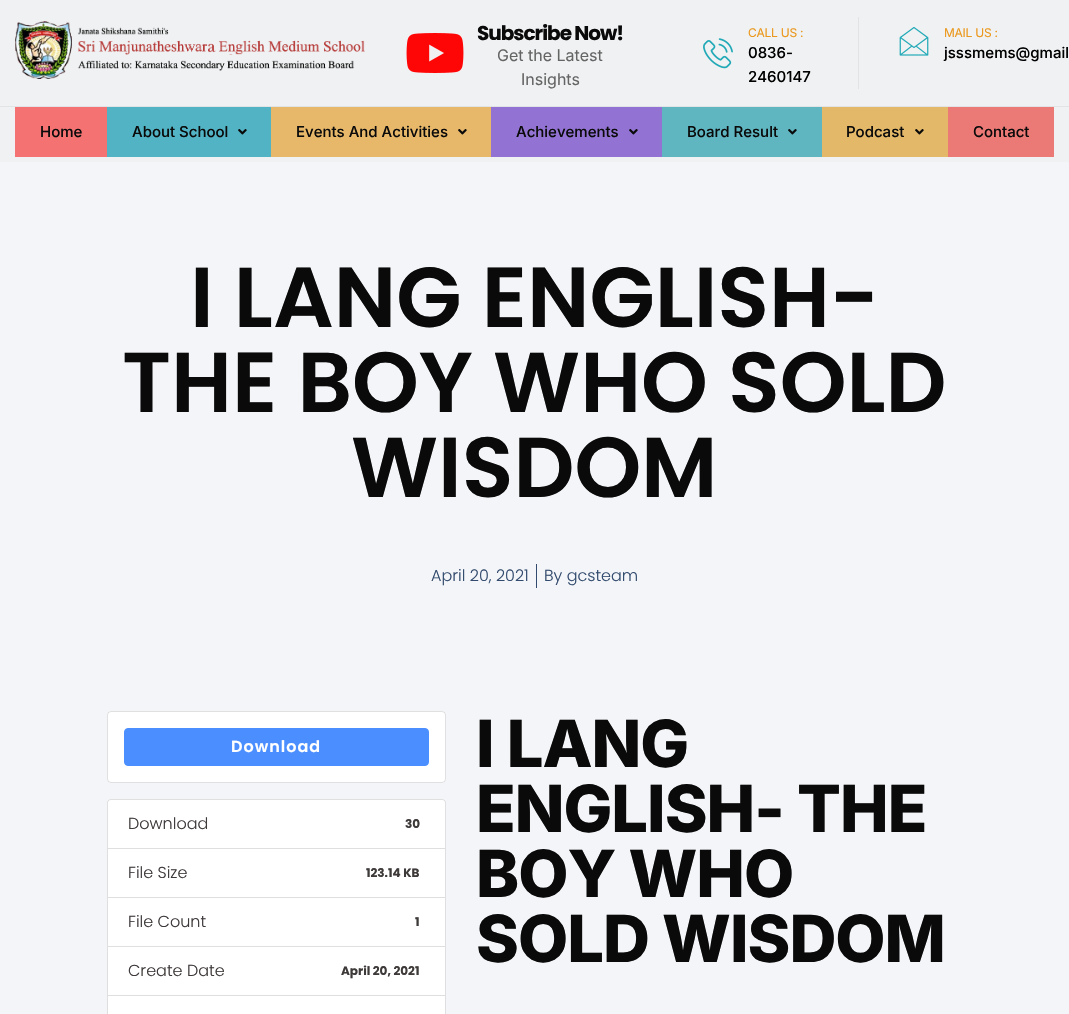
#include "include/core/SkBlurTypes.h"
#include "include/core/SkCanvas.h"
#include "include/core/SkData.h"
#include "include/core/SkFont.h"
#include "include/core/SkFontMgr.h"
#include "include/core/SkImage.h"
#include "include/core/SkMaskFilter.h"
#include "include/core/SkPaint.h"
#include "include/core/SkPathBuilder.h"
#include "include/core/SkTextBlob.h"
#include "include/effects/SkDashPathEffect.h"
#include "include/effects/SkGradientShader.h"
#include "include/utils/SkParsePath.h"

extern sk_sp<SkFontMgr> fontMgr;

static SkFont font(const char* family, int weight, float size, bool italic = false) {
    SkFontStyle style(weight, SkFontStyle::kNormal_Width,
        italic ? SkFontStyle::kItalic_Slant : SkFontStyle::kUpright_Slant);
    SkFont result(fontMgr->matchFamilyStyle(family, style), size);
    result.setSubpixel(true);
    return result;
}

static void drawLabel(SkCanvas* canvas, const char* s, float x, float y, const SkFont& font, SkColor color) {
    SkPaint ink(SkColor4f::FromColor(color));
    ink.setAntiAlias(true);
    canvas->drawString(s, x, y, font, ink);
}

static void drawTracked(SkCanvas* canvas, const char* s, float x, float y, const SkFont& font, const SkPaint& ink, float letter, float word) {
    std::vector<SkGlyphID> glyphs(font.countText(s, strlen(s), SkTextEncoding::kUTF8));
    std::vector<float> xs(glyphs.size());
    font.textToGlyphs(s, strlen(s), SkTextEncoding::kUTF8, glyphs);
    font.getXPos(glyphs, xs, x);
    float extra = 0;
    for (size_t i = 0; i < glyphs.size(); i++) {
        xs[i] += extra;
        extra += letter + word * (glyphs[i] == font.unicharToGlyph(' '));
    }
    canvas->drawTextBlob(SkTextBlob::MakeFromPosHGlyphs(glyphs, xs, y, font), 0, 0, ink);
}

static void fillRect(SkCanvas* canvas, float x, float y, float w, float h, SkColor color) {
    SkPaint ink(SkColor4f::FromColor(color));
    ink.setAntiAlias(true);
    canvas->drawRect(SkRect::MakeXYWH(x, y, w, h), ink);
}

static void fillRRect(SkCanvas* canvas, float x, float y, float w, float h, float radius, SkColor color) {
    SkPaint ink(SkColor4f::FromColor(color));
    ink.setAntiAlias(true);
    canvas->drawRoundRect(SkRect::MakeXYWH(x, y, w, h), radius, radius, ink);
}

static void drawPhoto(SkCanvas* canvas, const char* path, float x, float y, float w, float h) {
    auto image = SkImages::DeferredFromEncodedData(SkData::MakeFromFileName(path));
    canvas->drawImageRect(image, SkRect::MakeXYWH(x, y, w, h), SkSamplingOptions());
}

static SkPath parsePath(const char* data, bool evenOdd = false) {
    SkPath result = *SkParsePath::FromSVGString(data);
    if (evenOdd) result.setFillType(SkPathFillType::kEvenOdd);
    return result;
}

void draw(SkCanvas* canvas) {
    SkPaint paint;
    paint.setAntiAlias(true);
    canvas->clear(0xFFF3F5F8);
    fillRect(canvas, 0, 0, 1069, 106, 0xFFF0F1F2);
    drawPhoto(canvas, "assets/img1.png", 15, 21, 350, 58);
    drawPhoto(canvas, "assets/img2.png", 406, 33, 58, 40);
    SkFont font1 = font("Poppins", 700, 20);
    paint.setColor(0xFF0A0A0A);
    drawTracked(canvas, "Subscribe Now!", 477, 40, font1, paint, -1, 0);
    SkFont font2 = font("Inter", 400, 16);
    drawLabel(canvas, "Get the Latest", 497, 61, font2, 0xFF656565);
    drawLabel(canvas, "Insights", 521, 85, font2, 0xFF656565);
    fillRect(canvas, 858, 17, 1, 72, 0xFFE2E3E4);
    drawPhoto(canvas, "assets/img3.png", 703, 38, 30, 31);
    SkFont font3 = font("Inter", 400, 12);
    paint.setColor(0xFFEB981C);
    drawTracked(canvas, "CALL US :", 748, 37, font3, paint, -0.25f, 0);
    SkFont font4 = font("Inter", 500, 15);
    drawLabel(canvas, "0836-", 748, 58, font4, 0xFF000000);
    drawLabel(canvas, "2460147", 748, 82, font4, 0xFF000000);
    drawPhoto(canvas, "assets/img4.png", 899, 27, 30, 29);
    drawTracked(canvas, "MAIL US :", 944, 37, font3, paint, -0.25f, 0);
    drawLabel(canvas, "jsssmems@gmail", 944, 58, font4, 0xFF000000);
    fillRect(canvas, 0, 106, 1069, 1, 0xFFE2E3E4);
    fillRect(canvas, 0, 107, 1069, 55, 0xFFF0F1F2);
    fillRect(canvas, 15, 107, 92, 50, 0xFFF57272);
    drawLabel(canvas, "Home", 40, 137, font4, 0xFF0A0A0A);
    fillRect(canvas, 107, 107, 164, 50, 0xFF51B3C3);
    drawLabel(canvas, "About School", 132, 137, font4, 0xFF0A0A0A);
    drawPhoto(canvas, "assets/img5.png", 238, 129, 9, 6);
    fillRect(canvas, 271, 107, 220, 50, 0xFFE7B86A);
    drawLabel(canvas, "Events And Activities", 296, 137, font4, 0xFF0A0A0A);
    drawPhoto(canvas, "assets/img6.png", 458, 129, 9, 6);
    fillRect(canvas, 491, 107, 171, 50, 0xFF9273D3);
    drawLabel(canvas, "Achievements", 516, 137, font4, 0xFF0A0A0A);
    drawPhoto(canvas, "assets/img7.png", 629, 129, 9, 6);
    fillRect(canvas, 662, 107, 160, 50, 0xFF5FB6C1);
    drawLabel(canvas, "Board Result", 687, 137, font4, 0xFF0A0A0A);
    drawPhoto(canvas, "assets/img8.png", 788, 129, 9, 6);
    fillRect(canvas, 822, 107, 126, 50, 0xFFE3B969);
    drawLabel(canvas, "Podcast", 846, 137, font4, 0xFF0A0A0A);
    drawPhoto(canvas, "assets/img9.png", 915, 129, 9, 6);
    fillRect(canvas, 948, 107, 106, 50, 0xFFEB7976);
    drawLabel(canvas, "Contact", 973, 137, font4, 0xFF0A0A0A);
    SkFont font5 = font("Poppins", 600, 85);
    drawLabel(canvas, "I LANG ENGLISH-", 190, 327, font5, 0xFF0A0A0A);
    drawLabel(canvas, "THE BOY WHO SOLD", 122, 412, font5, 0xFF0A0A0A);
    drawLabel(canvas, "WISDOM", 351, 497, font5, 0xFF0A0A0A);
    SkFont font6 = font("Poppins", 300, 16);
    drawLabel(canvas, "April 20, 2021", 431, 581, font6, 0xFF324A6D);
    fillRect(canvas, 536, 564, 1, 24, 0xFF324A6D);
    drawLabel(canvas, "By gcsteam", 544, 581, font6, 0xFF324A6D);
    fillRRect(canvas, 107, 711, 339, 72, 4, 0xFFFFFFFF);
    paint.setStroke(true);
    paint.setStrokeWidth(1);
    paint.setColor(0x1F000000);
    canvas->drawRoundRect(SkRect::MakeXYWH(107.5f, 711.5f, 338, 71), 3.5f, 3.5f, paint);
    paint.setStroke(false);
    paint.setColor(0xFF4A8EFF);
    canvas->drawRoundRect(SkRect::MakeXYWH(124.5f, 728.5f, 304, 37), 3.5f, 3.5f, paint);
    paint.setStroke(true);
    canvas->drawRoundRect(SkRect::MakeXYWH(124.5f, 728.5f, 304, 37), 3.5f, 3.5f, paint);
    SkFont font7 = font("Poppins", 600, 16);
    paint.setStroke(false);
    paint.setColor(0xFFFFFFFF);
    drawTracked(canvas, "Download", 231, 752, font7, paint, 1, 0);
    canvas->drawPath(parsePath("M111 799H442C444 799 446 801 446 803V849H107V803C107 801 109 799 111 799Z"), paint);
    paint.setStroke(true);
    paint.setColor(0x1F000000);
    canvas->drawPath(parsePath("M111 799.5H442C444 799.5 445.5 801 445.5 803V848.5H107.5V803C107.5 801 109 799.5 111 799.5Z"), paint);
    drawLabel(canvas, "Download", 128, 829, font6, 0xFF3F3A3A);
    SkFont font8 = font("Poppins", 700, 12);
    drawLabel(canvas, "30", 405, 828, font8, 0xFF3F3A3A);
    paint.setStroke(false);
    paint.setColor(0xFFFFFFFF);
    canvas->drawRect(SkRect::MakeXYWH(107.5f, 848.5f, 338, 49), paint);
    paint.setStroke(true);
    paint.setColor(0xFFDFDFDF);
    canvas->drawRect(SkRect::MakeXYWH(107.5f, 848.5f, 338, 49), paint);
    drawLabel(canvas, "File Size", 128, 878, font6, 0xFF3F3A3A);
    drawLabel(canvas, "123.14 KB", 366, 877, font8, 0xFF3F3A3A);
    paint.setStroke(false);
    paint.setColor(0xFFFFFFFF);
    canvas->drawRect(SkRect::MakeXYWH(107.5f, 897.5f, 338, 49), paint);
    paint.setStroke(true);
    paint.setColor(0xFFDFDFDF);
    canvas->drawRect(SkRect::MakeXYWH(107.5f, 897.5f, 338, 49), paint);
    drawLabel(canvas, "File Count", 128, 927, font6, 0xFF3F3A3A);
    drawLabel(canvas, "1", 415, 926, font8, 0xFF3F3A3A);
    paint.setStroke(false);
    paint.setColor(0xFFFFFFFF);
    canvas->drawRect(SkRect::MakeXYWH(107.5f, 946.5f, 338, 49), paint);
    paint.setStroke(true);
    paint.setColor(0xFFDFDFDF);
    canvas->drawRect(SkRect::MakeXYWH(107.5f, 946.5f, 338, 49), paint);
    drawLabel(canvas, "Create Date", 128, 976, font6, 0xFF3F3A3A);
    drawLabel(canvas, "April 20, 2021", 341, 975, font8, 0xFF3F3A3A);
    paint.setStroke(false);
    paint.setColor(0xFFFFFFFF);
    canvas->drawRect(SkRect::MakeXYWH(107.5f, 995.5f, 338, 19), paint);
    paint.setStroke(true);
    paint.setColor(0xFFDFDFDF);
    canvas->drawRect(SkRect::MakeXYWH(107.5f, 995.5f, 338, 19), paint);
    SkFont font9 = font("Inter", 800, 65);
    paint.setStroke(false);
    paint.setColor(0xFF0A0A0A);
    drawTracked(canvas, "I LANG", 476, 767, font9, paint, -1, 0);
    drawTracked(canvas, "ENGLISH- THE", 476, 832, font9, paint, -1, 0);
    drawTracked(canvas, "BOY WHO", 476, 897, font9, paint, -1, 0);
    drawTracked(canvas, "SOLD WISDOM", 476, 962, font9, paint, -1, 0);
}
